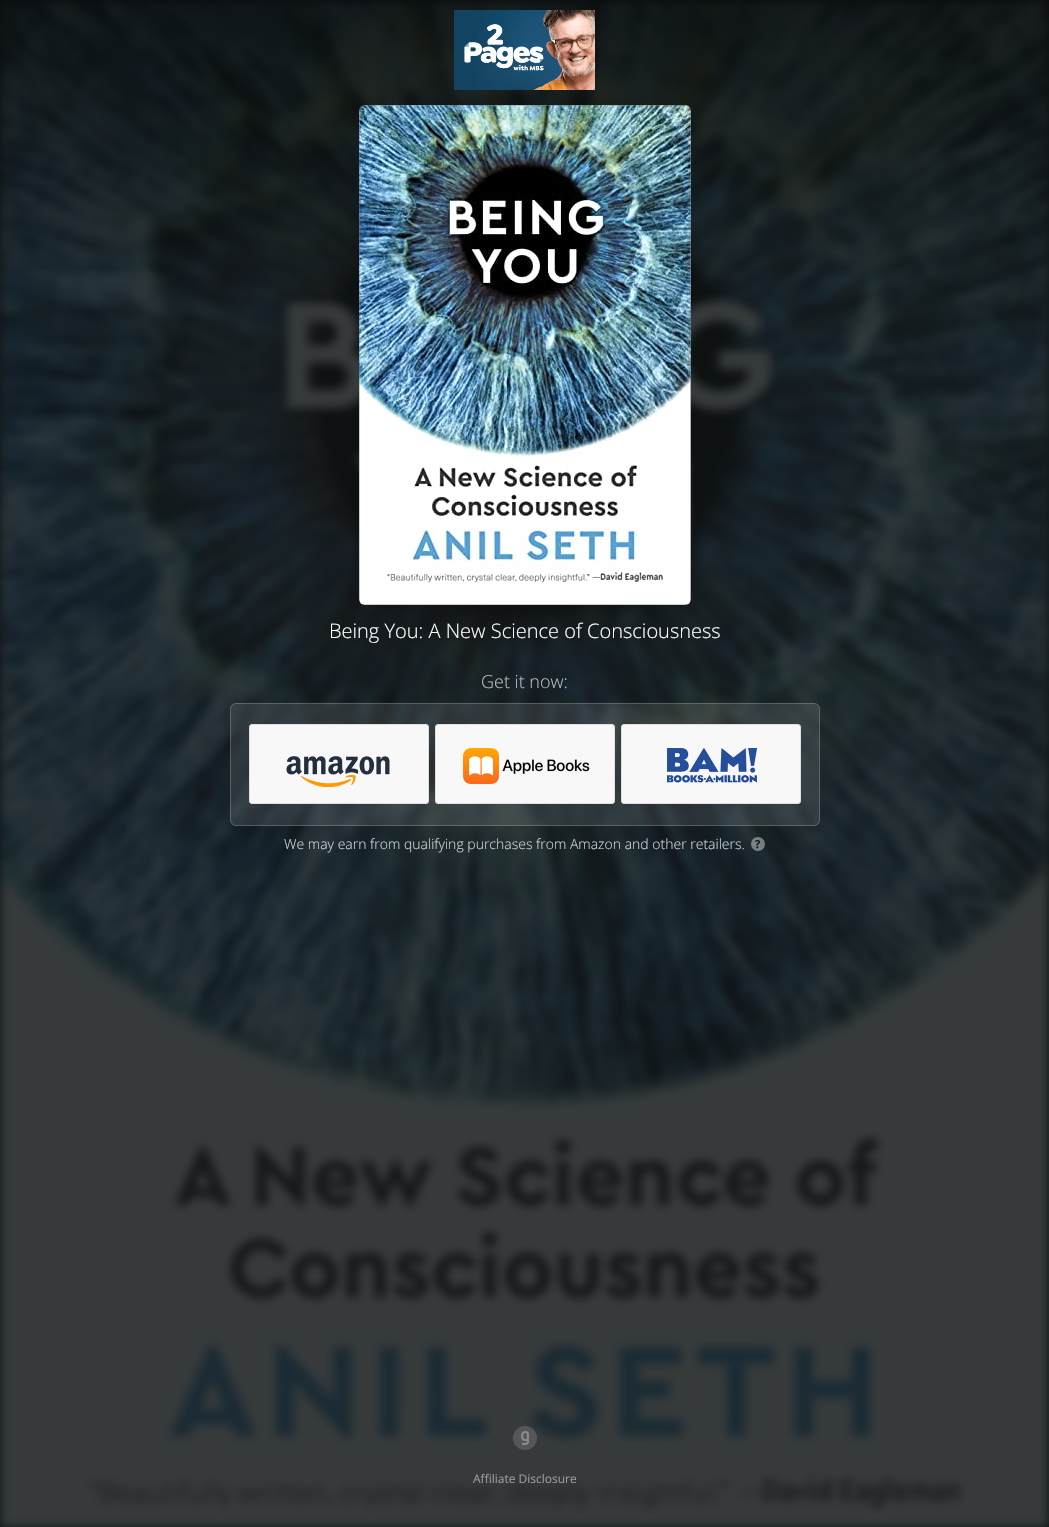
#include "include/core/SkBlurTypes.h"
#include "include/core/SkCanvas.h"
#include "include/core/SkData.h"
#include "include/core/SkFont.h"
#include "include/core/SkFontMgr.h"
#include "include/core/SkImage.h"
#include "include/core/SkMaskFilter.h"
#include "include/core/SkPaint.h"
#include "include/core/SkPathBuilder.h"
#include "include/core/SkTextBlob.h"
#include "include/effects/SkDashPathEffect.h"
#include "include/effects/SkGradientShader.h"
#include "include/utils/SkParsePath.h"

extern sk_sp<SkFontMgr> fontMgr;

static SkFont font(const char* family, int weight, float size, bool italic = false) {
    SkFontStyle style(weight, SkFontStyle::kNormal_Width,
        italic ? SkFontStyle::kItalic_Slant : SkFontStyle::kUpright_Slant);
    SkFont result(fontMgr->matchFamilyStyle(family, style), size);
    result.setSubpixel(true);
    return result;
}

static void drawLabel(SkCanvas* canvas, const char* s, float x, float y, const SkFont& font, SkColor color) {
    SkPaint ink(SkColor4f::FromColor(color));
    ink.setAntiAlias(true);
    canvas->drawString(s, x, y, font, ink);
}

static void fillRRect(SkCanvas* canvas, float x, float y, float w, float h, float radius, SkColor color) {
    SkPaint ink(SkColor4f::FromColor(color));
    ink.setAntiAlias(true);
    canvas->drawRoundRect(SkRect::MakeXYWH(x, y, w, h), radius, radius, ink);
}

static void drawPhoto(SkCanvas* canvas, const char* path, float x, float y, float w, float h) {
    auto image = SkImages::DeferredFromEncodedData(SkData::MakeFromFileName(path));
    canvas->drawImageRect(image, SkRect::MakeXYWH(x, y, w, h), SkSamplingOptions());
}

void draw(SkCanvas* canvas) {
    SkPaint paint;
    paint.setAntiAlias(true);
    canvas->clear(0xFF0F1415);
    drawPhoto(canvas, "assets/img1.png", 0, 0, 1049, 1527);
    {
        const SkColor colors[] = {0x80000000, 0x00000000};
        const float stops[] = {0, 1};
        const SkPoint ends[] = {{525, 0}, {525, 300}};
        paint.setShader(SkGradientShader::MakeLinear(ends, colors, stops, 2, SkTileMode::kClamp));
        paint.setAlpha(255);
    }
    canvas->drawRect(SkRect::MakeXYWH(0, 0, 1049, 271), paint);
    drawPhoto(canvas, "assets/img2.png", 454, 10, 141, 80);
    drawPhoto(canvas, "assets/img3.png", 359, 105, 332, 500);
    SkFont font1 = font("Open Sans", 300, 20);
    drawLabel(canvas, "Being You: A New Science of Consciousness", 329, 638, font1, 0xFFFFFFFF);
    SkFont font2 = font("Open Sans", 300, 18);
    drawLabel(canvas, "Get it now:", 481, 688, font2, 0xFFB9BCBE);
    fillRRect(canvas, 230, 703, 590, 123, 6, 0x1AFFFFFF);
    paint.setStroke(true);
    paint.setStrokeWidth(1);
    paint.setShader(nullptr);
    paint.setColor(0x33FFFFFF);
    canvas->drawRoundRect(SkRect::MakeXYWH(230.5f, 703.5f, 589, 122), 5.5f, 5.5f, paint);
    paint.setStroke(false);
    paint.setColor(0xFFF8F8F8);
    canvas->drawRoundRect(SkRect::MakeXYWH(249.5f, 724.5f, 179, 79), 2.5f, 2.5f, paint);
    paint.setStroke(true);
    paint.setColor(0xFFE0E0E0);
    canvas->drawRoundRect(SkRect::MakeXYWH(249.5f, 724.5f, 179, 79), 2.5f, 2.5f, paint);
    drawPhoto(canvas, "assets/img4.png", 286, 756, 104, 31);
    paint.setStroke(false);
    paint.setColor(0xFFF8F8F8);
    canvas->drawRoundRect(SkRect::MakeXYWH(435.5f, 724.5f, 179, 79), 2.5f, 2.5f, paint);
    paint.setStroke(true);
    paint.setColor(0xFFE0E0E0);
    canvas->drawRoundRect(SkRect::MakeXYWH(435.5f, 724.5f, 179, 79), 2.5f, 2.5f, paint);
    drawPhoto(canvas, "assets/img5.png", 463, 748, 127, 36);
    paint.setStroke(false);
    paint.setColor(0xFFF8F8F8);
    canvas->drawRoundRect(SkRect::MakeXYWH(621.5f, 724.5f, 179, 79), 2.5f, 2.5f, paint);
    paint.setStroke(true);
    paint.setColor(0xFFE0E0E0);
    canvas->drawRoundRect(SkRect::MakeXYWH(621.5f, 724.5f, 179, 79), 2.5f, 2.5f, paint);
    drawPhoto(canvas, "assets/img6.png", 667, 748, 90, 35);
    SkFont font3 = font("Open Sans", 300, 14);
    drawLabel(canvas, "We may earn from qualifying purchases from Amazon and other retailers.", 284, 849, font3, 0xFFD1D4D5);
    paint.setStroke(false);
    paint.setColor(0x66FFFFFF);
    canvas->drawCircle(758, 844, 7, paint);
    SkFont font4 = font("Open Sans", 700, 11);
    drawLabel(canvas, "?", 755, 848, font4, 0xFF181A1A);
    paint.setColor(0x26FFFFFF);
    canvas->drawCircle(525, 1438, 12, paint);
    drawPhoto(canvas, "assets/img7.png", 521, 1431, 8, 14);
    SkFont font5 = font("Open Sans", 400, 12);
    drawLabel(canvas, "Affiliate Disclosure", 473, 1483, font5, 0xFF9A9C9D);
}
